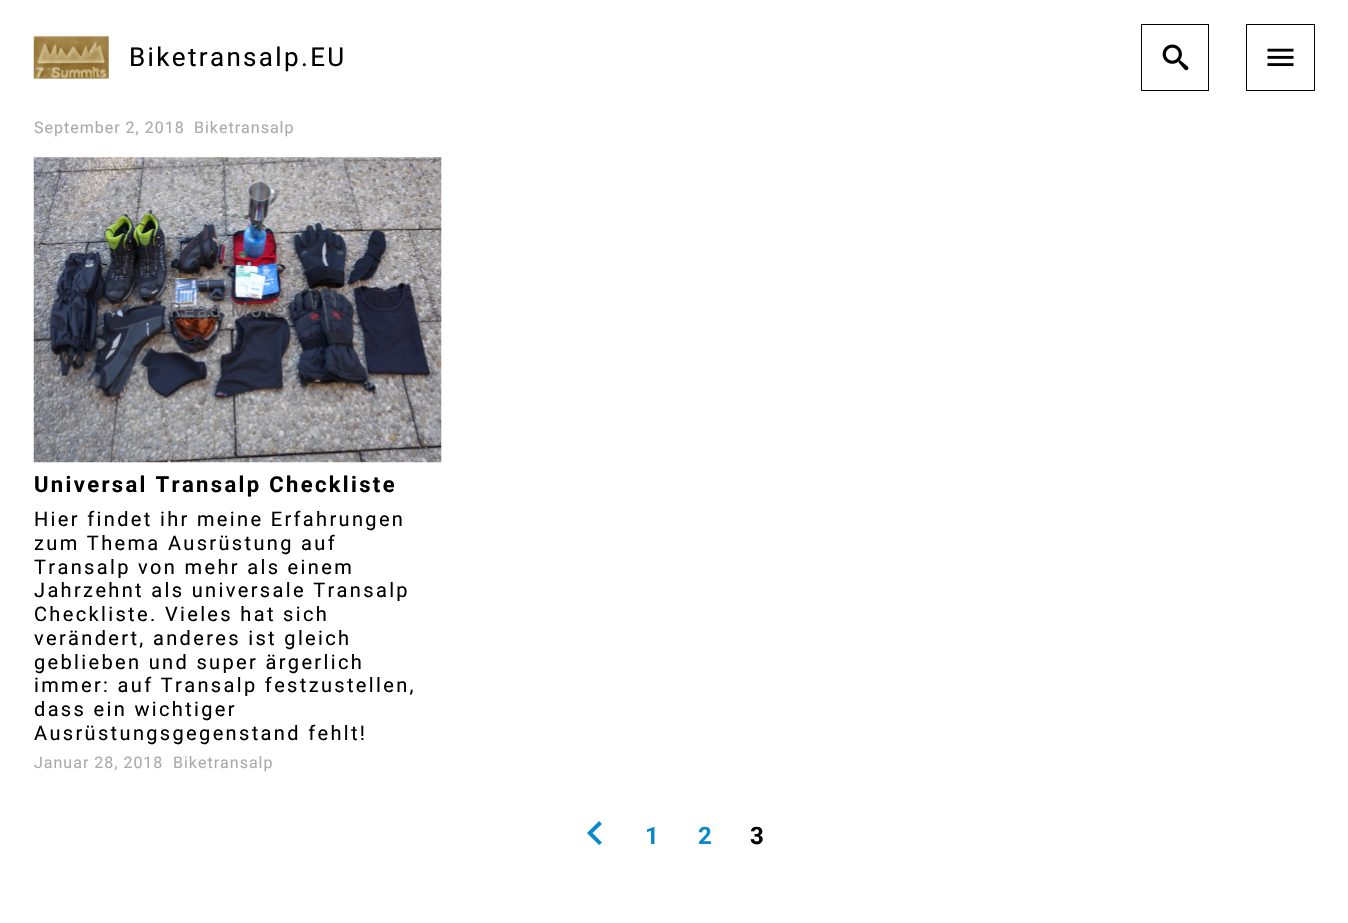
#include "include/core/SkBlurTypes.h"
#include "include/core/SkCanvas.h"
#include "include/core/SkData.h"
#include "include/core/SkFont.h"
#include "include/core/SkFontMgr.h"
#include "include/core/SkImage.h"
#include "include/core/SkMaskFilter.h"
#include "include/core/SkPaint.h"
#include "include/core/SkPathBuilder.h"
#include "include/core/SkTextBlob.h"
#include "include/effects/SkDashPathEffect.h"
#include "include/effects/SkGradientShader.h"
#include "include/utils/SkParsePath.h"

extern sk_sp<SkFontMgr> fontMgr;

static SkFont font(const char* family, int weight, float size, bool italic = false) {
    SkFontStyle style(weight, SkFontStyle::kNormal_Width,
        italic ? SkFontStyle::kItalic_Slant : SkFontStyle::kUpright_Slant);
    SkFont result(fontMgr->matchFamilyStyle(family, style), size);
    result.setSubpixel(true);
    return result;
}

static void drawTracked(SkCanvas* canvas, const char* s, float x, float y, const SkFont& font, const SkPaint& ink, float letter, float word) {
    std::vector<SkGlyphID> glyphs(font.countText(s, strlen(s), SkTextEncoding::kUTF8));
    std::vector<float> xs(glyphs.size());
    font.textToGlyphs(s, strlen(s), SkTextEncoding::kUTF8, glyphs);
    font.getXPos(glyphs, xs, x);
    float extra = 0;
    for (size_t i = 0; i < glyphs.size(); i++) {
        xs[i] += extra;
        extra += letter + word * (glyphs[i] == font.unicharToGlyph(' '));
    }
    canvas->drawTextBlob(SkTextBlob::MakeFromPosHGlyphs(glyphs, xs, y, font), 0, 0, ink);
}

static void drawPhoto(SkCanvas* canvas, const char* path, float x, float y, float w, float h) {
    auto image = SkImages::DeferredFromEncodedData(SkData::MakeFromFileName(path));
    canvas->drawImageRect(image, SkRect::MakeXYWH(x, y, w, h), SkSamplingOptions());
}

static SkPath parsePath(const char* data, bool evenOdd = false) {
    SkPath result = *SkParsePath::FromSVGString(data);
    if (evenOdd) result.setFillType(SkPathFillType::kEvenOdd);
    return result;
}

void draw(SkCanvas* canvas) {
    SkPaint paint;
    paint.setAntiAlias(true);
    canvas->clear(0xFFFFFFFF);
    drawPhoto(canvas, "assets/img1.png", 33, 35, 76, 44);
    SkFont font1 = font("Roboto", 400, 26);
    paint.setColor(0xFF000000);
    drawTracked(canvas, "Biketransalp.EU", 129, 66, font1, paint, 2.35f, 0);
    paint.setStroke(true);
    paint.setStrokeWidth(1);
    canvas->drawRect(SkRect::MakeXYWH(1141.5f, 24.5f, 67, 66), paint);
    drawPhoto(canvas, "assets/img2.png", 1162, 44, 27, 27);
    canvas->drawRect(SkRect::MakeXYWH(1246.5f, 24.5f, 68, 66), paint);
    drawPhoto(canvas, "assets/img3.png", 1267, 48, 27, 19);
    SkFont font2 = font("Roboto", 400, 16);
    paint.setStroke(false);
    paint.setColor(0xFFAAAAAA);
    drawTracked(canvas, "September 2, 2018", 34, 133, font2, paint, 1, 0);
    drawTracked(canvas, "Biketransalp", 194, 133, font2, paint, 1, 0);
    drawPhoto(canvas, "assets/img4.png", 33, 157, 409, 306);
    SkFont font3 = font("Roboto", 400, 20);
    paint.setColor(0xFF6C6A70);
    drawTracked(canvas, "Read More", 169, 317, font3, paint, 2.35f, 0);
    SkFont font4 = font("Roboto", 700, 22);
    paint.setColor(0xFF000000);
    drawTracked(canvas, "Universal Transalp Checkliste", 34, 492, font4, paint, 2.35f, 0);
    drawTracked(canvas, "Hier findet ihr meine Erfahrungen", 34, 526, font3, paint, 2.35f, 0);
    drawTracked(canvas, "zum Thema Ausrüstung auf", 34, 550, font3, paint, 2.35f, 0);
    drawTracked(canvas, "Transalp von mehr als einem", 34, 574, font3, paint, 2.35f, 0);
    drawTracked(canvas, "Jahrzehnt als universale Transalp", 34, 597, font3, paint, 2.35f, 0);
    drawTracked(canvas, "Checkliste. Vieles hat sich", 34, 621, font3, paint, 2.35f, 0);
    drawTracked(canvas, "verändert, anderes ist gleich", 34, 645, font3, paint, 2.35f, 0);
    drawTracked(canvas, "geblieben und super ärgerlich", 34, 669, font3, paint, 2.35f, 0);
    drawTracked(canvas, "immer: auf Transalp festzustellen,", 34, 692, font3, paint, 2.35f, 0);
    drawTracked(canvas, "dass ein wichtiger", 34, 716, font3, paint, 2.35f, 0);
    drawTracked(canvas, "Ausrüstungsgegenstand fehlt!", 34, 740, font3, paint, 2.35f, 0);
    paint.setColor(0xFFAAAAAA);
    drawTracked(canvas, "Januar 28, 2018", 34, 768, font2, paint, 1, 0);
    drawTracked(canvas, "Biketransalp", 173, 768, font2, paint, 1, 0);
    paint.setColor(0xFF0A88CC);
    canvas->drawPath(parsePath("M602 824L599 821L587 833L599 845L602 842.5L592.5 833Z"), paint);
    SkFont font5 = font("Roboto", 700, 24);
    drawTracked(canvas, "1", 645, 844, font5, paint, 2.35f, 0);
    drawTracked(canvas, "2", 698, 844, font5, paint, 2.35f, 0);
    paint.setColor(0xFF000000);
    drawTracked(canvas, "3", 750, 844, font5, paint, 2.35f, 0);
}
